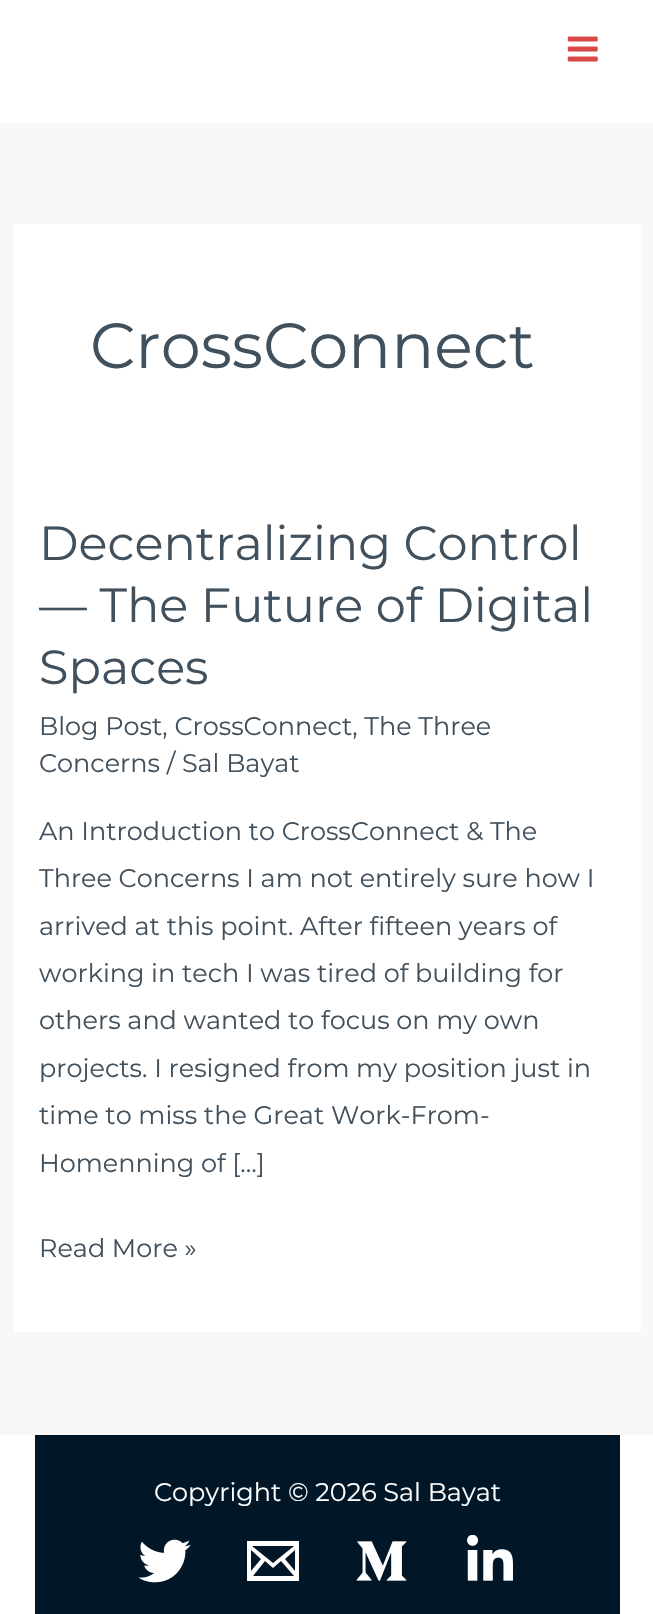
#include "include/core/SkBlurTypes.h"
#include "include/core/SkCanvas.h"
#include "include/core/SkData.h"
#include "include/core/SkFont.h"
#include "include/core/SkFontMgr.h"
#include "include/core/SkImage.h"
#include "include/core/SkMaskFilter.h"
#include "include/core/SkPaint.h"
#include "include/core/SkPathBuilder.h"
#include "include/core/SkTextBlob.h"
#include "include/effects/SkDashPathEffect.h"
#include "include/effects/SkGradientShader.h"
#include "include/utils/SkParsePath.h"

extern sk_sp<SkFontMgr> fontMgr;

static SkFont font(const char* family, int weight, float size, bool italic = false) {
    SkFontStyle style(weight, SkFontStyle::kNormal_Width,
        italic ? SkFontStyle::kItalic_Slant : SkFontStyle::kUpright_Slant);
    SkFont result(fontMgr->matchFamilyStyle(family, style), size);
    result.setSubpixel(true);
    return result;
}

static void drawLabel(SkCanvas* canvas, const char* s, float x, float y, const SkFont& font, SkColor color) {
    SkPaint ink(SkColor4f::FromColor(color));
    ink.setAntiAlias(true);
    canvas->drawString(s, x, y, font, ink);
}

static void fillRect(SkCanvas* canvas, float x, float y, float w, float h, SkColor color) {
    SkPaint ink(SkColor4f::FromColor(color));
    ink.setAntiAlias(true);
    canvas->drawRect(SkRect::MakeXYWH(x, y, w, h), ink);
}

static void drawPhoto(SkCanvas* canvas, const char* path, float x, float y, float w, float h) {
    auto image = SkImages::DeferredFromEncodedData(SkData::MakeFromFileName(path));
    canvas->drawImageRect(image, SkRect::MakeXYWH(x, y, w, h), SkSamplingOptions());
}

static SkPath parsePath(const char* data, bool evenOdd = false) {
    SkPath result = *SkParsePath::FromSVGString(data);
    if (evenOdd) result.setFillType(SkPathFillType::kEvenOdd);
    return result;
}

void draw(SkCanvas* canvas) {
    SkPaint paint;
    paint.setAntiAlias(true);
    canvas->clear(0xFFF9F8F8);
    fillRect(canvas, 0, 0, 653, 123, 0xFFFFFFFF);
    drawPhoto(canvas, "assets/img1.png", 567, 36, 31, 26);
    fillRect(canvas, 14, 224, 627, 1108, 0xFFFFFFFF);
    SkFont font1 = font("Montserrat", 400, 63.75f);
    drawLabel(canvas, "CrossConnect", 90, 368, font1, 0xFF41505D);
    SkFont font2 = font("Montserrat", 400, 47.9f);
    drawLabel(canvas, "Decentralizing Control", 39, 560, font2, 0xFF41505D);
    drawLabel(canvas, "— The Future of Digital", 39, 622, font2, 0xFF41505D);
    drawLabel(canvas, "Spaces", 39, 684, font2, 0xFF41505D);
    SkFont font3 = font("Montserrat", 400, 25.5f);
    drawLabel(canvas, "Blog Post, CrossConnect, The Three", 39, 735, font3, 0xFF41505D);
    drawLabel(canvas, "Concerns / Sal Bayat", 39, 772, font3, 0xFF41505D);
    drawLabel(canvas, "An Introduction to CrossConnect & The", 39, 840, font3, 0xFF41505D);
    drawLabel(canvas, "Three Concerns I am not entirely sure how I", 39, 887, font3, 0xFF41505D);
    drawLabel(canvas, "arrived at this point. After fifteen years of", 39, 935, font3, 0xFF41505D);
    drawLabel(canvas, "working in tech I was tired of building for", 39, 982, font3, 0xFF41505D);
    drawLabel(canvas, "others and wanted to focus on my own", 39, 1029, font3, 0xFF41505D);
    drawLabel(canvas, "projects. I resigned from my position just in", 39, 1077, font3, 0xFF41505D);
    drawLabel(canvas, "time to miss the Great Work-From-", 39, 1124, font3, 0xFF41505D);
    drawLabel(canvas, "Homenning of […]", 39, 1172, font3, 0xFF41505D);
    drawLabel(canvas, "Read More »", 39, 1257, font3, 0xFF41505D);
    fillRect(canvas, 0, 1435, 653, 179, 0xFFFFFFFF);
    fillRect(canvas, 35, 1435, 585, 179, 0xFF011627);
    drawLabel(canvas, "Copyright © 2026 Sal Bayat", 154, 1501, font3, 0xFFFFFFFF);
    drawPhoto(canvas, "assets/img2.png", 138, 1539, 53, 44);
    paint.setColor(0xFFFFFFFF);
    canvas->drawPath(parsePath("M247 1541V1581H299V1541ZM261 1559L251 1571V1550ZM252 1546H294L273 1563ZM265 1561L273 1568L281 1561L294 1576H253ZM285 1559L295 1550V1571Z"), paint);
    drawPhoto(canvas, "assets/img3.png", 356, 1541, 51, 40);
    drawPhoto(canvas, "assets/img4.png", 467, 1535, 46, 46);
}
